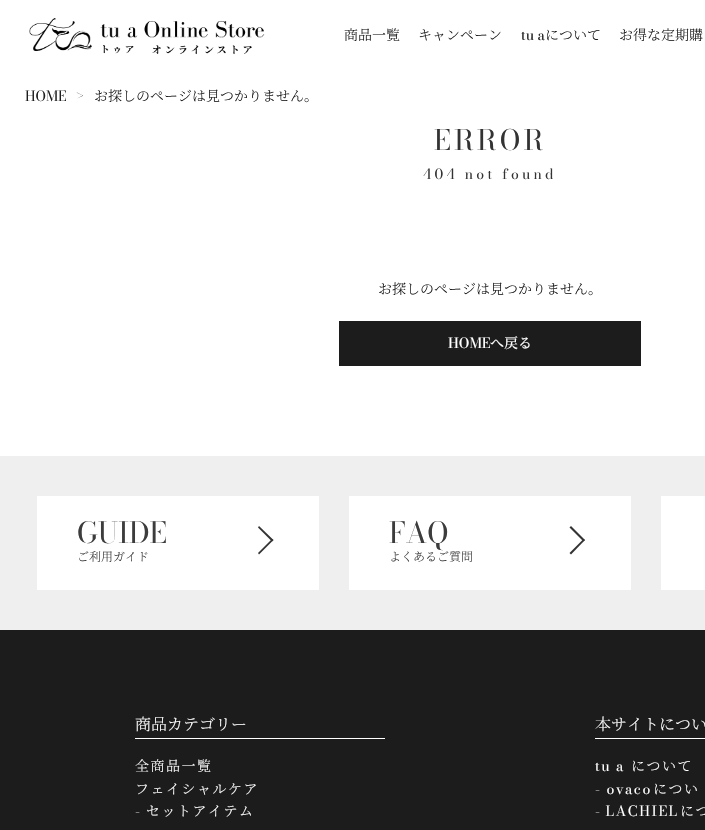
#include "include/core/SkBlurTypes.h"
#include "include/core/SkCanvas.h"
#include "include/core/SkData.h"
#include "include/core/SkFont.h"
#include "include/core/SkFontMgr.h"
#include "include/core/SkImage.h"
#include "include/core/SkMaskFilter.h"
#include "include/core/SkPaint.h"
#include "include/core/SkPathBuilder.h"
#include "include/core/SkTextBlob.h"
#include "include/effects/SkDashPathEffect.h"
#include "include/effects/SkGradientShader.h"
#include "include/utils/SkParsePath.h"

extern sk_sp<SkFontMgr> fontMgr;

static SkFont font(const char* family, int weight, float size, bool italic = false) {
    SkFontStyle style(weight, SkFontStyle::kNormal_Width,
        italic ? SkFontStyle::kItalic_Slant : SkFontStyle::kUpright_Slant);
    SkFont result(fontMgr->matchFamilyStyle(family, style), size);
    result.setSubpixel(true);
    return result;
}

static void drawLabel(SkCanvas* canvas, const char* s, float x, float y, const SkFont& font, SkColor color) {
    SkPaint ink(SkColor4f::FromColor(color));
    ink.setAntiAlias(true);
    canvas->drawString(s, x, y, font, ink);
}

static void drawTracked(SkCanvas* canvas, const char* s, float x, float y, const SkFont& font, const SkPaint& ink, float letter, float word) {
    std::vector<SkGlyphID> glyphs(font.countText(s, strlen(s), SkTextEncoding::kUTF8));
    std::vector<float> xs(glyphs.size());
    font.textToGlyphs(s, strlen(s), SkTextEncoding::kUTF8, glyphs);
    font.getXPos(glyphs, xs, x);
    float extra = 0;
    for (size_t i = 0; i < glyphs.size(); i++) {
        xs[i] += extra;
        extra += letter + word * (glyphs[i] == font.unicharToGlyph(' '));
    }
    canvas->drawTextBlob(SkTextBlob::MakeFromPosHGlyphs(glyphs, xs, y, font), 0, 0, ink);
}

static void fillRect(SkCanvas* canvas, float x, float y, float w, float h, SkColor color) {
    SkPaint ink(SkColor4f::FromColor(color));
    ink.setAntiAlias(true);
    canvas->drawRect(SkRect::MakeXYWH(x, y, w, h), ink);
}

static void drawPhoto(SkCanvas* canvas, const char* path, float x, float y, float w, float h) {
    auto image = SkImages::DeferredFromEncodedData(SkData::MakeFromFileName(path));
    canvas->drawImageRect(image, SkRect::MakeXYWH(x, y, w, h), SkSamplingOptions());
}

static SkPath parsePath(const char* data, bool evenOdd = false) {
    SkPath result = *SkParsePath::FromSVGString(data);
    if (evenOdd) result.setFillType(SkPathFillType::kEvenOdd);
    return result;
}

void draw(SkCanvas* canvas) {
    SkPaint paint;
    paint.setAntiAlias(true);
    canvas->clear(0xFFFFFFFF);
    drawPhoto(canvas, "assets/img1.png", 29, 18, 236, 37);
    SkFont font1 = font("Noto Serif JP", 300, 14);
    drawLabel(canvas, "商品一覧", 344, 40, font1, 0xFF1C1C1C);
    drawLabel(canvas, "キャンペーン", 418, 40, font1, 0xFF1C1C1C);
    SkFont font2 = font("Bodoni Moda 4", 400, 14);
    drawLabel(canvas, "tu a", 521, 40, font2, 0xFF1C1C1C);
    drawLabel(canvas, "について", 545, 40, font1, 0xFF1C1C1C);
    drawLabel(canvas, "お得な定期購", 619, 40, font1, 0xFF1C1C1C);
    SkFont font3 = font("Bodoni Moda", 400, 14);
    drawLabel(canvas, "HOME", 25, 101, font3, 0xFF1C1C1C);
    drawLabel(canvas, ">", 76, 101, font3, 0xFF1C1C1C);
    drawLabel(canvas, "お探しのページは見つかりません。", 94, 101, font1, 0xFF1C1C1C);
    SkFont font4 = font("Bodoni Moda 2", 400, 28);
    paint.setColor(0xFF333333);
    drawTracked(canvas, "ERROR", 434, 150, font4, paint, 3.25f, 0);
    drawTracked(canvas, "404 not found", 423, 179, font3, paint, 3.25f, 0);
    drawLabel(canvas, "お探しのページは見つかりません。", 378, 294, font1, 0xFF1C1C1C);
    fillRect(canvas, 339, 321, 302, 45, 0xFF1C1C1C);
    SkFont font5 = font("Bodoni Moda", 500, 14);
    drawLabel(canvas, "HOME", 448, 348, font5, 0xFFFFFFFF);
    SkFont font6 = font("Noto Serif JP", 500, 14);
    drawLabel(canvas, "へ戻る", 490, 348, font6, 0xFFFFFFFF);
    fillRect(canvas, 0, 456, 705, 174, 0xFFEFEFEF);
    fillRect(canvas, 37, 496, 282, 94, 0xFFFFFFFF);
    SkFont font7 = font("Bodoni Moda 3", 400, 29);
    drawLabel(canvas, "GUIDE", 77, 543, font7, 0xFF3C3C3C);
    SkFont font8 = font("Noto Serif JP", 300, 12);
    drawLabel(canvas, "ご利用ガイド", 77, 561, font8, 0xFF3C3C3C);
    canvas->drawPath(parsePath("M259 526L273.5 540L272 541.5L258 527.5Z"), paint);
    canvas->drawPath(parsePath("M272 539L273.5 540L259 554.5L258 553Z"), paint);
    fillRect(canvas, 349, 496, 282, 94, 0xFFFFFFFF);
    drawLabel(canvas, "FAQ", 389, 543, font7, 0xFF3C3C3C);
    drawLabel(canvas, "よくあるご質問", 389, 561, font8, 0xFF3C3C3C);
    canvas->drawPath(parsePath("M571 526L585 540L583.5 541.5L569.5 527.5Z"), paint);
    canvas->drawPath(parsePath("M583.5 539L585 540L571 554.5L569.5 553Z"), paint);
    fillRect(canvas, 661, 496, 44, 94, 0xFFFFFFFF);
    fillRect(canvas, 0, 630, 705, 200, 0xFF1C1C1C);
    fillRect(canvas, 135, 738, 250, 1, 0xFFFFFFFF);
    SkFont font9 = font("Noto Serif JP", 300, 16);
    drawLabel(canvas, "商品カテゴリー", 135, 730, font9, 0xFFFFFFFF);
    paint.setColor(0xFFFFFFFF);
    drawTracked(canvas, "全商品一覧", 135, 771, font1, paint, 1.5f, 0);
    drawTracked(canvas, "フェイシャルケア", 135, 794, font1, paint, 1.5f, 0);
    drawTracked(canvas, "-", 135, 816, font2, paint, 1.5f, 0);
    drawTracked(canvas, "セットアイテム", 146, 816, font1, paint, 1.5f, 0);
    fillRect(canvas, 595, 738, 110, 1, 0xFFFFFFFF);
    drawLabel(canvas, "本サイトについ", 595, 730, font9, 0xFFFFFFFF);
    drawTracked(canvas, "tu a", 595, 771, font2, paint, 1.5f, 0);
    drawTracked(canvas, "について", 631, 771, font1, paint, 1.5f, 0);
    drawTracked(canvas, "- ovaco", 595, 794, font2, paint, 1.5f, 0);
    drawTracked(canvas, "につい", 653, 794, font1, paint, 1.5f, 0);
    drawTracked(canvas, "- LACHIEL", 595, 816, font2, paint, 1.5f, -1);
    drawTracked(canvas, "につ", 680, 816, font1, paint, 1.5f, 0);
}
